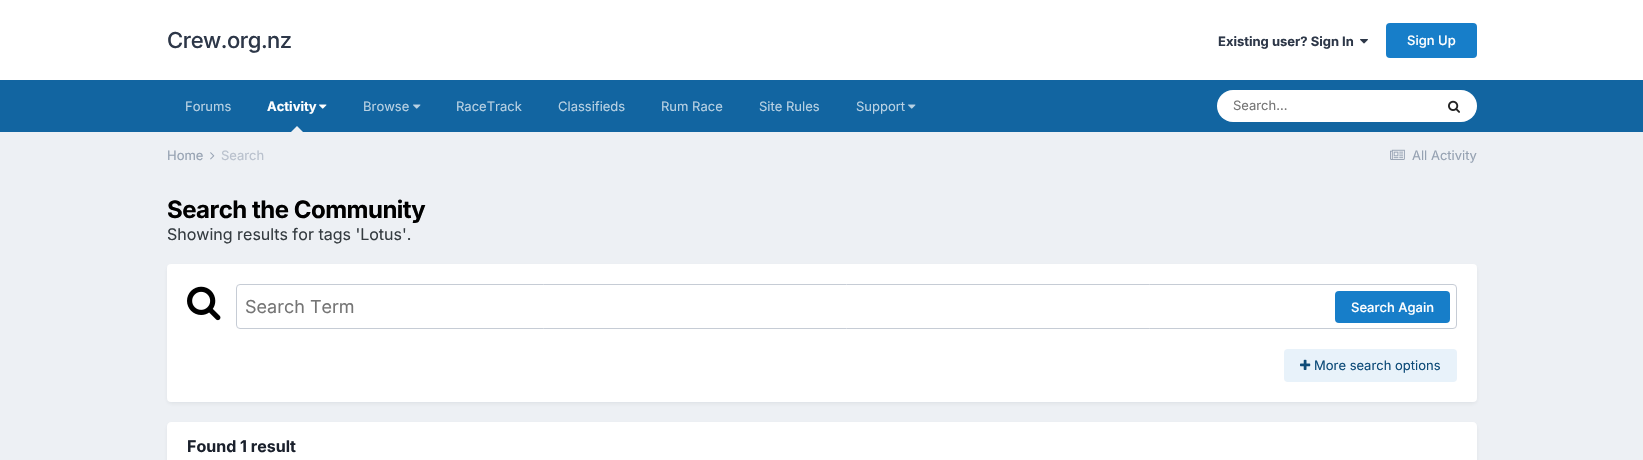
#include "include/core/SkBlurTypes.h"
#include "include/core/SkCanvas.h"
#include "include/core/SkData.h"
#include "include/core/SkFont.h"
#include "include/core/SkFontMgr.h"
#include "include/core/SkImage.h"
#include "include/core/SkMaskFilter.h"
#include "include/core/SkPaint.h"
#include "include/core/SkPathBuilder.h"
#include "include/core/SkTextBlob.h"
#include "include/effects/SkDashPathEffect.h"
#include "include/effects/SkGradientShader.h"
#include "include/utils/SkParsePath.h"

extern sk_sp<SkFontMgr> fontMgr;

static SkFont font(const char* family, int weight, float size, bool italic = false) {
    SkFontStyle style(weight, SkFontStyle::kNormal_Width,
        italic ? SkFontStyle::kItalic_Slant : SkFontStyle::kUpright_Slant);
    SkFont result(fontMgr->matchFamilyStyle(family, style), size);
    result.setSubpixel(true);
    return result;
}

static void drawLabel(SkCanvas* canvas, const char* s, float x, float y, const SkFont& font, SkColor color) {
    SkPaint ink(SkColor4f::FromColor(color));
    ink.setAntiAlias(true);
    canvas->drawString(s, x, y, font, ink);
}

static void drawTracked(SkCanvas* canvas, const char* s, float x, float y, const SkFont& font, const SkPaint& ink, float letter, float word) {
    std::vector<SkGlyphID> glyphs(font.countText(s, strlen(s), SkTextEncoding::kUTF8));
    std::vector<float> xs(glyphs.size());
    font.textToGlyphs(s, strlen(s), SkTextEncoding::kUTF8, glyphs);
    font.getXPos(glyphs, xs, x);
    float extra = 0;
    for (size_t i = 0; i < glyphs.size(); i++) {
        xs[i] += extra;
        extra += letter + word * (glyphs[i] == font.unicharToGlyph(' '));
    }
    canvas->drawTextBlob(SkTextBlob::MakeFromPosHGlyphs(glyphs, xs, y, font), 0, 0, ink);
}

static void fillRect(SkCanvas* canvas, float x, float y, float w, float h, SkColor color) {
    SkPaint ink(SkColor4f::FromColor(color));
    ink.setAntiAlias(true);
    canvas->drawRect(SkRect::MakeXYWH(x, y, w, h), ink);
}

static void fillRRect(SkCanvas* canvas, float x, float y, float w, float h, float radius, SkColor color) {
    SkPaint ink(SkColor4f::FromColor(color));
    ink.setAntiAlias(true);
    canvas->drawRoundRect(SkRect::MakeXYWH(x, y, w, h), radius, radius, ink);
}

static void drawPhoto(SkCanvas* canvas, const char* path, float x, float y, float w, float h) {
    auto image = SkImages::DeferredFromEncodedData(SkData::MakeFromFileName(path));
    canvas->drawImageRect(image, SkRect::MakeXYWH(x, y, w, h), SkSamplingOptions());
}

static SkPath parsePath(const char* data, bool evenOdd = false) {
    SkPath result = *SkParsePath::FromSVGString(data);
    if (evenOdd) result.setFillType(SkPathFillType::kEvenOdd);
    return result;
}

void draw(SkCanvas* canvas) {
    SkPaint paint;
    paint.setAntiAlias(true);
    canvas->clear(0xFFEDF0F4);
    fillRect(canvas, 0, 0, 1643, 80, 0xFFFFFFFF);
    SkFont font1 = font("Inter", 500, 22);
    paint.setColor(0xFF2D3748);
    drawTracked(canvas, "Crew.org.nz", 167, 48, font1, paint, -0.5f, 0);
    SkFont font2 = font("Inter", 700, 13);
    drawLabel(canvas, "Existing user? Sign In", 1218, 46, font2, 0xFF2D3748);
    drawPhoto(canvas, "assets/img1.png", 1360, 39, 8, 5);
    fillRRect(canvas, 1386, 23, 91, 35, 4, 0xFF177EC9);
    SkFont font3 = font("Inter", 500, 13);
    drawLabel(canvas, "Sign Up", 1407, 45, font3, 0xFFFFFFFF);
    fillRect(canvas, 0, 80, 1643, 52, 0xFF1265A1);
    SkFont font4 = font("Inter", 400, 13);
    drawLabel(canvas, "Forums", 185, 111, font4, 0xFFB8D1E3);
    drawLabel(canvas, "Activity", 267, 111, font2, 0xFFFFFFFF);
    drawPhoto(canvas, "assets/img2.png", 319, 104, 8, 5);
    paint.setColor(0xFFEDF0F4);
    canvas->drawPath(parsePath("M303 132H291L297 126Z"), paint);
    drawLabel(canvas, "Browse", 363, 111, font4, 0xFFB8D1E3);
    drawPhoto(canvas, "assets/img3.png", 413, 104, 8, 5);
    drawLabel(canvas, "RaceTrack", 456, 111, font4, 0xFFB8D1E3);
    drawLabel(canvas, "Classifieds", 558, 111, font4, 0xFFB8D1E3);
    drawLabel(canvas, "Rum Race", 661, 111, font4, 0xFFB8D1E3);
    drawLabel(canvas, "Site Rules", 759, 111, font4, 0xFFB8D1E3);
    drawLabel(canvas, "Support", 856, 111, font4, 0xFFB8D1E3);
    drawPhoto(canvas, "assets/img3.png", 908, 104, 8, 5);
    fillRRect(canvas, 1217, 90, 260, 32, 16, 0xFFFFFFFF);
    drawLabel(canvas, "Search...", 1233, 110, font4, 0xFF757575);
    drawPhoto(canvas, "assets/img4.png", 1448, 100, 12, 13);
    drawLabel(canvas, "Home", 167, 160, font4, 0xFF96A2B2);
    drawPhoto(canvas, "assets/img5.png", 210, 152, 5, 8);
    drawLabel(canvas, "Search", 221, 160, font4, 0xFFB9C1CD);
    drawPhoto(canvas, "assets/img6.png", 1390, 149, 15, 11);
    drawLabel(canvas, "All Activity", 1412, 160, font4, 0xFF96A2B2);
    SkFont font5 = font("Inter", 700, 24);
    paint.setColor(0xFF000000);
    drawTracked(canvas, "Search the Community", 167, 218, font5, paint, -0.5f, 0);
    SkFont font6 = font("Inter", 400, 16);
    drawLabel(canvas, "Showing results for tags 'Lotus'.", 167, 240, font6, 0xFF353C41);
    paint.setColor(0x1A2D3748);
    paint.setMaskFilter(SkMaskFilter::MakeBlur(kNormal_SkBlurStyle, 2));
    canvas->drawRoundRect(SkRect::MakeXYWH(168, 267, 1308, 136), 3, 3, paint);
    paint.setMaskFilter(nullptr);
    fillRRect(canvas, 167, 264, 1310, 138, 4, 0xFFFFFFFF);
    drawPhoto(canvas, "assets/img7.png", 187, 286, 34, 35);
    paint.setStroke(true);
    paint.setStrokeWidth(1);
    paint.setColor(0xFFC6CCD5);
    canvas->drawRoundRect(SkRect::MakeXYWH(236.5f, 284.5f, 1220, 44), 3.5f, 3.5f, paint);
    SkFont font7 = font("Inter", 400, 18);
    drawLabel(canvas, "Search Term", 245, 313, font7, 0xFF757575);
    fillRRect(canvas, 1335, 291, 115, 32, 4, 0xFF177EC9);
    drawLabel(canvas, "Search Again", 1351, 312, font3, 0xFFFFFFFF);
    fillRRect(canvas, 1284, 349, 173, 33, 4, 0xFFE8F2FA);
    drawPhoto(canvas, "assets/img8.png", 1300, 359, 11, 11);
    drawLabel(canvas, "More search options", 1314, 370, font4, 0xFF0E4C79);
    paint.setStroke(false);
    paint.setColor(0x1A2D3748);
    paint.setMaskFilter(SkMaskFilter::MakeBlur(kNormal_SkBlurStyle, 2));
    canvas->drawRoundRect(SkRect::MakeXYWH(168, 425, 1308, 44), 3, 3, paint);
    paint.setMaskFilter(nullptr);
    paint.setColor(0xFFFFFFFF);
    canvas->drawPath(parsePath("M171 422H1473C1475 422 1477 424 1477 426V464H167V426C167 424 169 422 171 422Z"), paint);
    SkFont font8 = font("Inter", 700, 16);
    drawLabel(canvas, "Found 1 result", 187, 452, font8, 0xFF1A202C);
}
